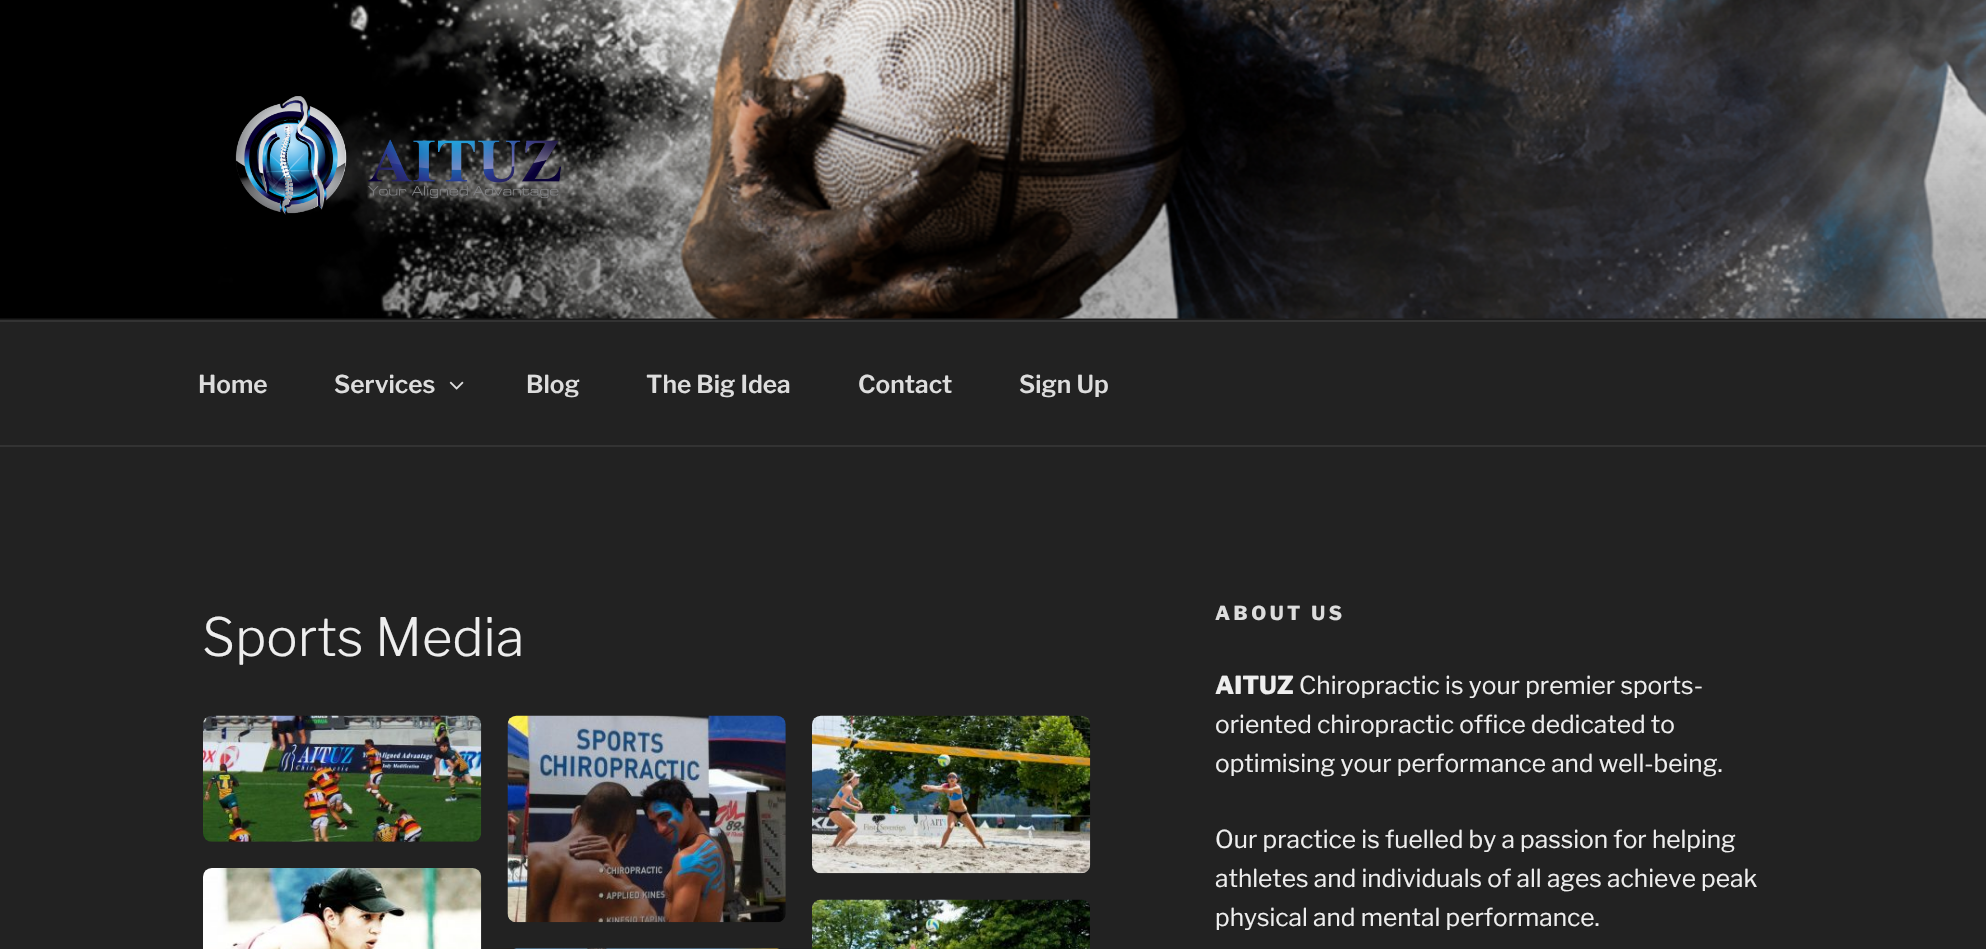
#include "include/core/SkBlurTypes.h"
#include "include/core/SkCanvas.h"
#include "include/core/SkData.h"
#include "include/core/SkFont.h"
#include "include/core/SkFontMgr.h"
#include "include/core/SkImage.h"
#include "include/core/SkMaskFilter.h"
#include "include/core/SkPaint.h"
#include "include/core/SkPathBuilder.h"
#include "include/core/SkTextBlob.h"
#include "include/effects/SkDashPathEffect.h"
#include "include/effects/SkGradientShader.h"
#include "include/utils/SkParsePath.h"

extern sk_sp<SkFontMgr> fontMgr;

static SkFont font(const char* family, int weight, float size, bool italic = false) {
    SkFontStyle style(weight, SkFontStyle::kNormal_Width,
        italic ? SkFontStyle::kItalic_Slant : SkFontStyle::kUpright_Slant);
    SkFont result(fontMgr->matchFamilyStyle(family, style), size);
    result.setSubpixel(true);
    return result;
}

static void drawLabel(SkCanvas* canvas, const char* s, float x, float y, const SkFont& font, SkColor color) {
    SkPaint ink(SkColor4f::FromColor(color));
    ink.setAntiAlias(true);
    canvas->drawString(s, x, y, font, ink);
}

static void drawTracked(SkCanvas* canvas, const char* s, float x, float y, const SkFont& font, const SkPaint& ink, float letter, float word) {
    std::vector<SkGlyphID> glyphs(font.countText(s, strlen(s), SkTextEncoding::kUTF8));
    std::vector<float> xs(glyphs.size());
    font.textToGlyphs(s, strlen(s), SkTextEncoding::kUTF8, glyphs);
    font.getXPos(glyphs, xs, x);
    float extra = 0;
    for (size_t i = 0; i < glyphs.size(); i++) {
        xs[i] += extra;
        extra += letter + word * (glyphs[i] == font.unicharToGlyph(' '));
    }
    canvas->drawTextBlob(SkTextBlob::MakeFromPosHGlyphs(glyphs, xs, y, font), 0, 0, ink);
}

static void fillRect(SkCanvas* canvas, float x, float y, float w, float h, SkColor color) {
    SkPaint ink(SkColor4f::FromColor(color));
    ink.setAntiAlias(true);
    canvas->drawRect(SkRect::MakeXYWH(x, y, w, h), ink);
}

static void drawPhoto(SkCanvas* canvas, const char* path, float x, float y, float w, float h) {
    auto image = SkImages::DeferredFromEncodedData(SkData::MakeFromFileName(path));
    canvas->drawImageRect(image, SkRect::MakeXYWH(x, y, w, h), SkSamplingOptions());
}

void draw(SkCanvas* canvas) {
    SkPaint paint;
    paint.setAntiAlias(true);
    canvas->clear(0xFF222222);
    fillRect(canvas, 0, 318, 1986, 2, 0xFF262626);
    drawPhoto(canvas, "assets/img1.png", 0, 0, 1986, 319);
    {
        const SkColor colors[] = {0x00000000, 0x4D000000, 0x4D000000};
        const float stops[] = {0, 0.75f, 1};
        const SkPoint ends[] = {{993, 0}, {993, 320}};
        paint.setShader(SkGradientShader::MakeLinear(ends, colors, stops, 3, SkTileMode::kClamp));
        paint.setAlpha(255);
    }
    canvas->drawRect(SkRect::MakeXYWH(0, 17, 1986, 303), paint);
    drawPhoto(canvas, "assets/img2.png", 235, 96, 326, 119);
    fillRect(canvas, 0, 320, 1986, 2, 0xFF333333);
    fillRect(canvas, 0, 445, 1986, 2, 0xFF333333);
    SkFont font1 = font("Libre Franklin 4", 100, 24.5f);
    drawLabel(canvas, "Home", 198, 393, font1, 0xFFDDDDDD);
    drawLabel(canvas, "Services", 334, 393, font1, 0xFFDDDDDD);
    drawPhoto(canvas, "assets/img3.png", 449, 381, 15, 9);
    drawLabel(canvas, "Blog", 526, 393, font1, 0xFFDDDDDD);
    drawLabel(canvas, "The Big Idea", 646, 393, font1, 0xFFDDDDDD);
    drawLabel(canvas, "Contact", 858, 393, font1, 0xFFDDDDDD);
    drawLabel(canvas, "Sign Up", 1019, 393, font1, 0xFFDDDDDD);
    SkFont font2 = font("Libre Franklin", 100, 52.5f);
    drawLabel(canvas, "Sports Media", 202, 656, font2, 0xFFEEEEEE);
    drawPhoto(canvas, "assets/img4.png", 203, 715, 279, 127);
    drawPhoto(canvas, "assets/img5.png", 507, 715, 279, 208);
    drawPhoto(canvas, "assets/img6.png", 812, 715, 279, 159);
    drawPhoto(canvas, "assets/img7.png", 203, 868, 279, 81);
    drawPhoto(canvas, "assets/img8.png", 514, 948, 265, 1);
    drawPhoto(canvas, "assets/img9.png", 812, 899, 278, 50);
    SkFont font3 = font("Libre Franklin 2", 100, 19.25f);
    paint.setShader(nullptr);
    paint.setColor(0xFFDDDDDD);
    drawTracked(canvas, "ABOUT US", 1215, 620, font3, paint, 3.5f, 0);
    SkFont font4 = font("Libre Franklin 2", 100, 24.5f);
    drawLabel(canvas, "AITUZ", 1215, 694, font4, 0xFFEEEEEE);
    SkFont font5 = font("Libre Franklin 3", 100, 24.5f);
    drawLabel(canvas, "Chiropractic is your premier sports-", 1299, 694, font5, 0xFFEEEEEE);
    drawLabel(canvas, "oriented chiropractic office dedicated to", 1215, 733, font5, 0xFFEEEEEE);
    drawLabel(canvas, "optimising your performance and well-being.", 1215, 772, font5, 0xFFEEEEEE);
    drawLabel(canvas, "Our practice is fuelled by a passion for helping", 1215, 848, font5, 0xFFEEEEEE);
    drawLabel(canvas, "athletes and individuals of all ages achieve peak", 1215, 887, font5, 0xFFEEEEEE);
    drawLabel(canvas, "physical and mental performance.", 1215, 926, font5, 0xFFEEEEEE);
}
